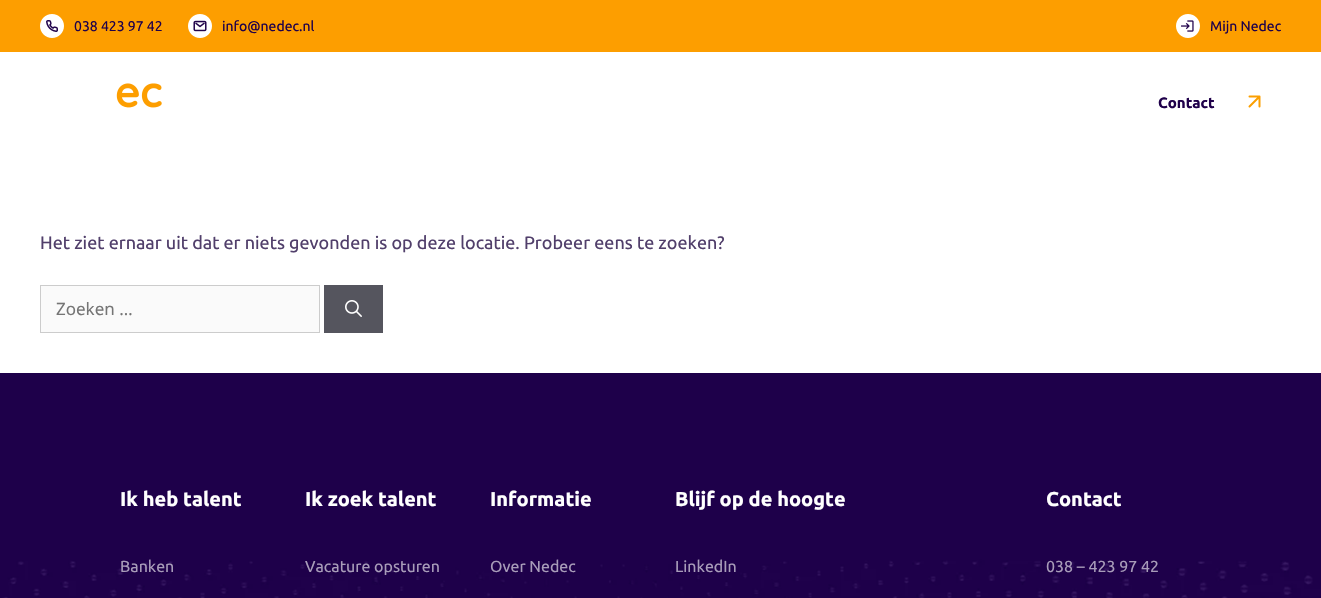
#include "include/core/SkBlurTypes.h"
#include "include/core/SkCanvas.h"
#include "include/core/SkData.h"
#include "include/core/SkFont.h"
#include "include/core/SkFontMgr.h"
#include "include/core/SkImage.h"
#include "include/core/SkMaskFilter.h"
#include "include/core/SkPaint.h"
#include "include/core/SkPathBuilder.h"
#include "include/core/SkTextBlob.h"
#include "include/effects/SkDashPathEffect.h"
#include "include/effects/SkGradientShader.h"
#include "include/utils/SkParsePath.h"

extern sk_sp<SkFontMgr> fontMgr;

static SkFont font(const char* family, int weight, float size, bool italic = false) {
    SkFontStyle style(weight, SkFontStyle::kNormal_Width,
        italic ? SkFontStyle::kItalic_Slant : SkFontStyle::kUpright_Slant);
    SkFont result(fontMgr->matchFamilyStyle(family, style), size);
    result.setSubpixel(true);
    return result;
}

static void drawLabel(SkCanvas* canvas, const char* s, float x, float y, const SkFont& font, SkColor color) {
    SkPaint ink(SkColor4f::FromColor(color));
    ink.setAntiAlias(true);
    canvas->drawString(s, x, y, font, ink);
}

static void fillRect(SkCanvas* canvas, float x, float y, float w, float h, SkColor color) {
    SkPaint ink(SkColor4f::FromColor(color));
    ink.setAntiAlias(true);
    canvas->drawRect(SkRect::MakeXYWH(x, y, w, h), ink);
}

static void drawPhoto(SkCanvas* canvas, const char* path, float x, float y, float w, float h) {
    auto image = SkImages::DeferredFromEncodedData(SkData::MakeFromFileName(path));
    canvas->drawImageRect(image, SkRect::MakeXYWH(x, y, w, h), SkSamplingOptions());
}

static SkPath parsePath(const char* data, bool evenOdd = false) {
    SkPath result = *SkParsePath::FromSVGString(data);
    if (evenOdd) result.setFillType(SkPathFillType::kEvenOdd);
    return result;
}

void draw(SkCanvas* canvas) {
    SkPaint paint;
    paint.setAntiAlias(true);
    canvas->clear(0xFFFFFFFF);
    fillRect(canvas, 0, 0, 1321, 52, 0xFFFD9E00);
    drawPhoto(canvas, "assets/img1.png", 40, 14, 24, 24);
    SkFont font1 = font("Ubuntu", 400, 14);
    drawLabel(canvas, "038 423 97 42", 74, 31, font1, 0xFF1F004A);
    drawPhoto(canvas, "assets/img2.png", 188, 14, 24, 24);
    drawLabel(canvas, "info@nedec.nl", 222, 31, font1, 0xFF1F004A);
    drawPhoto(canvas, "assets/img3.png", 1176, 14, 24, 24);
    drawLabel(canvas, "Mijn Nedec", 1210, 31, font1, 0xFF1F004A);
    drawPhoto(canvas, "assets/img4.png", 116, 83, 46, 25);
    SkFont font2 = font("Ubuntu", 700, 15);
    drawLabel(canvas, "Contact", 1158, 108, font2, 0xFF1F004A);
    paint.setStroke(true);
    paint.setStrokeWidth(2);
    paint.setStrokeCap(SkPaint::kRound_Cap);
    paint.setStrokeJoin(SkPaint::kRound_Join);
    paint.setColor(0xFFFB9F01);
    canvas->drawPath(parsePath("M1249.5 106.5L1259.5 96.5M1249.5 96.5H1259.5V106.5"), paint);
    SkFont font3 = font("Ubuntu", 400, 18);
    drawLabel(canvas, "Het ziet ernaar uit dat er niets gevonden is op deze locatie. Probeer eens te zoeken?", 40, 249, font3, 0xFF513F6B);
    paint.setStroke(false);
    paint.setColor(0xFFFAFAFA);
    canvas->drawRect(SkRect::MakeXYWH(40.5f, 285.5f, 279, 47), paint);
    paint.setStroke(true);
    paint.setStrokeWidth(1);
    paint.setStrokeCap(SkPaint::kButt_Cap);
    paint.setStrokeJoin(SkPaint::kMiter_Join);
    paint.setColor(0xFFCCCCCC);
    canvas->drawRect(SkRect::MakeXYWH(40.5f, 285.5f, 279, 47), paint);
    SkFont font4 = font("Noto Sans", 400, 17);
    drawLabel(canvas, "Zoeken …", 56, 315, font4, 0xFF757575);
    fillRect(canvas, 324, 285, 59, 48, 0xFF55555E);
    drawPhoto(canvas, "assets/img5.png", 345, 300, 17, 17);
    drawPhoto(canvas, "assets/img6.png", 0, 373, 1321, 225);
    SkFont font5 = font("Ubuntu", 700, 20);
    drawLabel(canvas, "Ik heb talent", 120, 506, font5, 0xFFFFFFFF);
    SkFont font6 = font("Ubuntu", 400, 16);
    drawLabel(canvas, "Banken", 120, 572, font6, 0xFFA89CB9);
    drawLabel(canvas, "Ik zoek talent", 305, 506, font5, 0xFFFFFFFF);
    drawLabel(canvas, "Vacature opsturen", 305, 572, font6, 0xFFA89CB9);
    drawLabel(canvas, "Informatie", 490, 506, font5, 0xFFFFFFFF);
    drawLabel(canvas, "Over Nedec", 490, 572, font6, 0xFFA89CB9);
    drawLabel(canvas, "Blijf op de hoogte", 675, 506, font5, 0xFFFFFFFF);
    drawLabel(canvas, "LinkedIn", 675, 572, font6, 0xFFA89CB9);
    drawLabel(canvas, "Contact", 1046, 506, font5, 0xFFFFFFFF);
    drawLabel(canvas, "038 – 423 97 42", 1046, 572, font6, 0xFFA89CB9);
}
